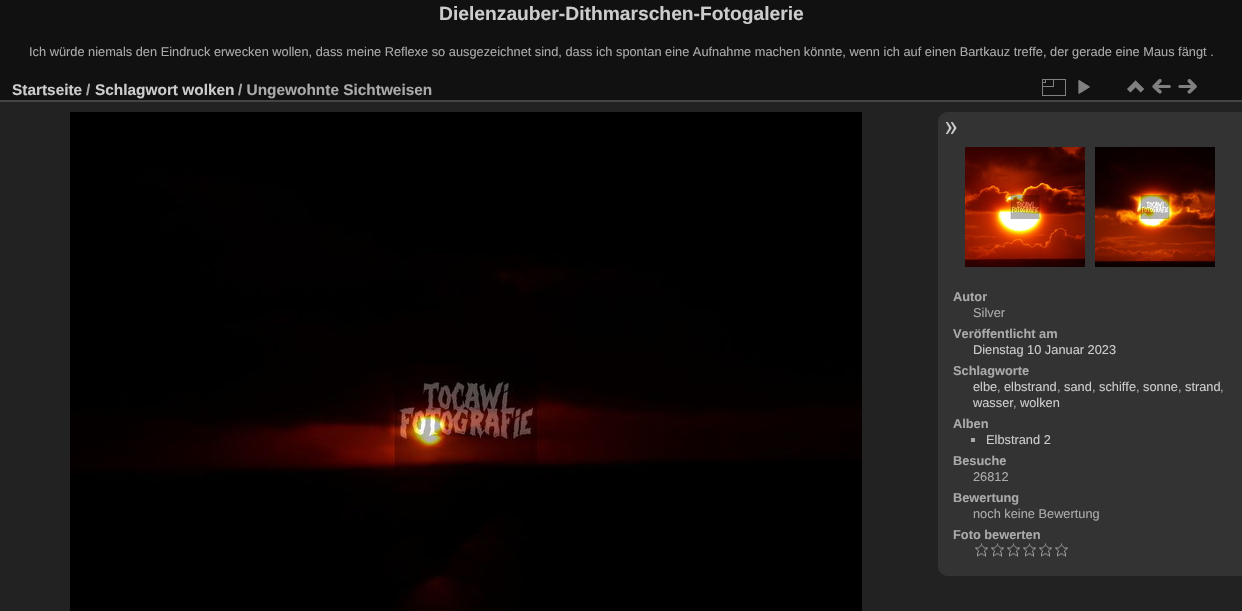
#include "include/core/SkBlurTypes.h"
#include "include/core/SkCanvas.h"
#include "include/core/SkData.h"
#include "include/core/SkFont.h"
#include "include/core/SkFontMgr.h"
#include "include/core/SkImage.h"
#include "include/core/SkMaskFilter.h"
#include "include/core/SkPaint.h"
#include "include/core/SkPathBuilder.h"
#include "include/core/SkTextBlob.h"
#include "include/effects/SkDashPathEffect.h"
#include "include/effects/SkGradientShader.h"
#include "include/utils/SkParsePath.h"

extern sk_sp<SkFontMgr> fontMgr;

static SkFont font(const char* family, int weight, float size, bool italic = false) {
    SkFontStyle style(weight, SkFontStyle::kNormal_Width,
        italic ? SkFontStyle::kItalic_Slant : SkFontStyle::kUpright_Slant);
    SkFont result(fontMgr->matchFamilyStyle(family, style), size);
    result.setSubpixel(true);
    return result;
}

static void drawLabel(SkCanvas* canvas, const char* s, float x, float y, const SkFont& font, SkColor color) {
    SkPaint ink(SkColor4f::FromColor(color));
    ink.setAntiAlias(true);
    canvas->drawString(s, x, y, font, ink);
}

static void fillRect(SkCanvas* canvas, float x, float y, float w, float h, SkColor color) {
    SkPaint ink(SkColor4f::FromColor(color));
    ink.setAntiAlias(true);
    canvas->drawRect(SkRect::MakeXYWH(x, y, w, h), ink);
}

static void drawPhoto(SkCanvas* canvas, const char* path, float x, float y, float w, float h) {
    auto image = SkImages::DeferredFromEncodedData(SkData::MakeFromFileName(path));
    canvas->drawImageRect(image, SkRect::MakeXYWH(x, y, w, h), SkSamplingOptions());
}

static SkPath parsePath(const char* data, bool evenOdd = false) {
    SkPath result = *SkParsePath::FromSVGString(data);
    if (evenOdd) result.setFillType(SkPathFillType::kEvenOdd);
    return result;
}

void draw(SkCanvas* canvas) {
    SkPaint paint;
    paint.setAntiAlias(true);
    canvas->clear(0xFF111111);
    SkFont font1 = font("Liberation Sans", 700, 19.25f);
    drawLabel(canvas, "Dielenzauber-Dithmarschen-Fotogalerie", 439, 20, font1, 0xFFCCCCCC);
    SkFont font2 = font("Liberation Sans", 400, 12.8f);
    drawLabel(canvas, "Ich würde niemals den Eindruck erwecken wollen, dass meine Reflexe so ausgezeichnet sind, dass ich spontan eine Aufnahme machen könnte, wenn ich auf einen Bartkauz treffe, der gerade eine Maus fängt .", 29, 56, font2, 0xFFAAAAAA);
    fillRect(canvas, 0, 102, 1242, 509, 0xFF222222);
    fillRect(canvas, 0, 100, 1242, 2, 0xFF444444);
    SkFont font3 = font("Liberation Sans", 700, 15.4f);
    drawLabel(canvas, "Startseite", 12, 95, font3, 0xFFCCCCCC);
    drawLabel(canvas, "/", 86, 95, font3, 0xFFAAAAAA);
    drawLabel(canvas, "Schlagwort wolken", 95, 95, font3, 0xFFCCCCCC);
    drawLabel(canvas, "/ Ungewohnte Sichtweisen", 238, 95, font3, 0xFFAAAAAA);
    drawPhoto(canvas, "assets/img1.png", 1042, 79, 24, 17);
    drawPhoto(canvas, "assets/img2.png", 1078, 80, 12, 14);
    drawPhoto(canvas, "assets/img3.png", 1127, 80, 17, 13);
    drawPhoto(canvas, "assets/img4.png", 1152, 79, 19, 15);
    drawPhoto(canvas, "assets/img5.png", 1178, 79, 19, 15);
    drawPhoto(canvas, "assets/img6.png", 70, 112, 792, 499);
    paint.setColor(0xFF333333);
    canvas->drawPath(parsePath("M948 112H1242V576H948C942.5 576 938 571.5 938 566V122C938 116.5 942.5 112 948 112Z"), paint);
    drawPhoto(canvas, "assets/img7.png", 945, 122, 12, 12);
    drawPhoto(canvas, "assets/img8.png", 965, 147, 120, 120);
    drawPhoto(canvas, "assets/img9.png", 1095, 147, 120, 120);
    SkFont font4 = font("Liberation Sans", 700, 12.8f);
    drawLabel(canvas, "Autor", 953, 301, font4, 0xFFAAAAAA);
    drawLabel(canvas, "Silver", 973, 317, font2, 0xFFAAAAAA);
    drawLabel(canvas, "Veröffentlicht am", 953, 338, font4, 0xFFAAAAAA);
    drawLabel(canvas, "Dienstag 10 Januar 2023", 973, 354, font2, 0xFFCCCCCC);
    drawLabel(canvas, "Schlagworte", 953, 375, font4, 0xFFAAAAAA);
    drawLabel(canvas, "elbe", 973, 391, font2, 0xFFCCCCCC);
    drawLabel(canvas, ",", 997, 391, font2, 0xFFAAAAAA);
    drawLabel(canvas, "elbstrand", 1004, 391, font2, 0xFFCCCCCC);
    drawLabel(canvas, ",", 1057, 391, font2, 0xFFAAAAAA);
    drawLabel(canvas, "sand", 1064, 391, font2, 0xFFCCCCCC);
    drawLabel(canvas, ",", 1092, 391, font2, 0xFFAAAAAA);
    drawLabel(canvas, "schiffe", 1099, 391, font2, 0xFFCCCCCC);
    drawLabel(canvas, ",", 1136, 391, font2, 0xFFAAAAAA);
    drawLabel(canvas, "sonne", 1143, 391, font2, 0xFFCCCCCC);
    drawLabel(canvas, ",", 1178, 391, font2, 0xFFAAAAAA);
    drawLabel(canvas, "strand", 1185, 391, font2, 0xFFCCCCCC);
    drawLabel(canvas, ",", 1220, 391, font2, 0xFFAAAAAA);
    drawLabel(canvas, "wasser", 973, 407, font2, 0xFFCCCCCC);
    drawLabel(canvas, ",", 1013, 407, font2, 0xFFAAAAAA);
    drawLabel(canvas, "wolken", 1020, 407, font2, 0xFFCCCCCC);
    drawLabel(canvas, "Alben", 953, 428, font4, 0xFFAAAAAA);
    fillRect(canvas, 971, 438, 4, 4, 0xFFAAAAAA);
    drawLabel(canvas, "Elbstrand 2", 986, 444, font2, 0xFFCCCCCC);
    drawLabel(canvas, "Besuche", 953, 465, font4, 0xFFAAAAAA);
    drawLabel(canvas, "26812", 973, 481, font2, 0xFFAAAAAA);
    drawLabel(canvas, "Bewertung", 953, 502, font4, 0xFFAAAAAA);
    drawLabel(canvas, "noch keine Bewertung", 973, 518, font2, 0xFFAAAAAA);
    drawLabel(canvas, "Foto bewerten", 953, 539, font4, 0xFFAAAAAA);
    drawPhoto(canvas, "assets/img10.png", 975, 543, 13, 14);
    drawPhoto(canvas, "assets/img10.png", 991, 543, 13, 14);
    drawPhoto(canvas, "assets/img10.png", 1007, 543, 13, 14);
    drawPhoto(canvas, "assets/img10.png", 1023, 543, 13, 14);
    drawPhoto(canvas, "assets/img10.png", 1039, 543, 13, 14);
    drawPhoto(canvas, "assets/img10.png", 1055, 543, 13, 14);
}
